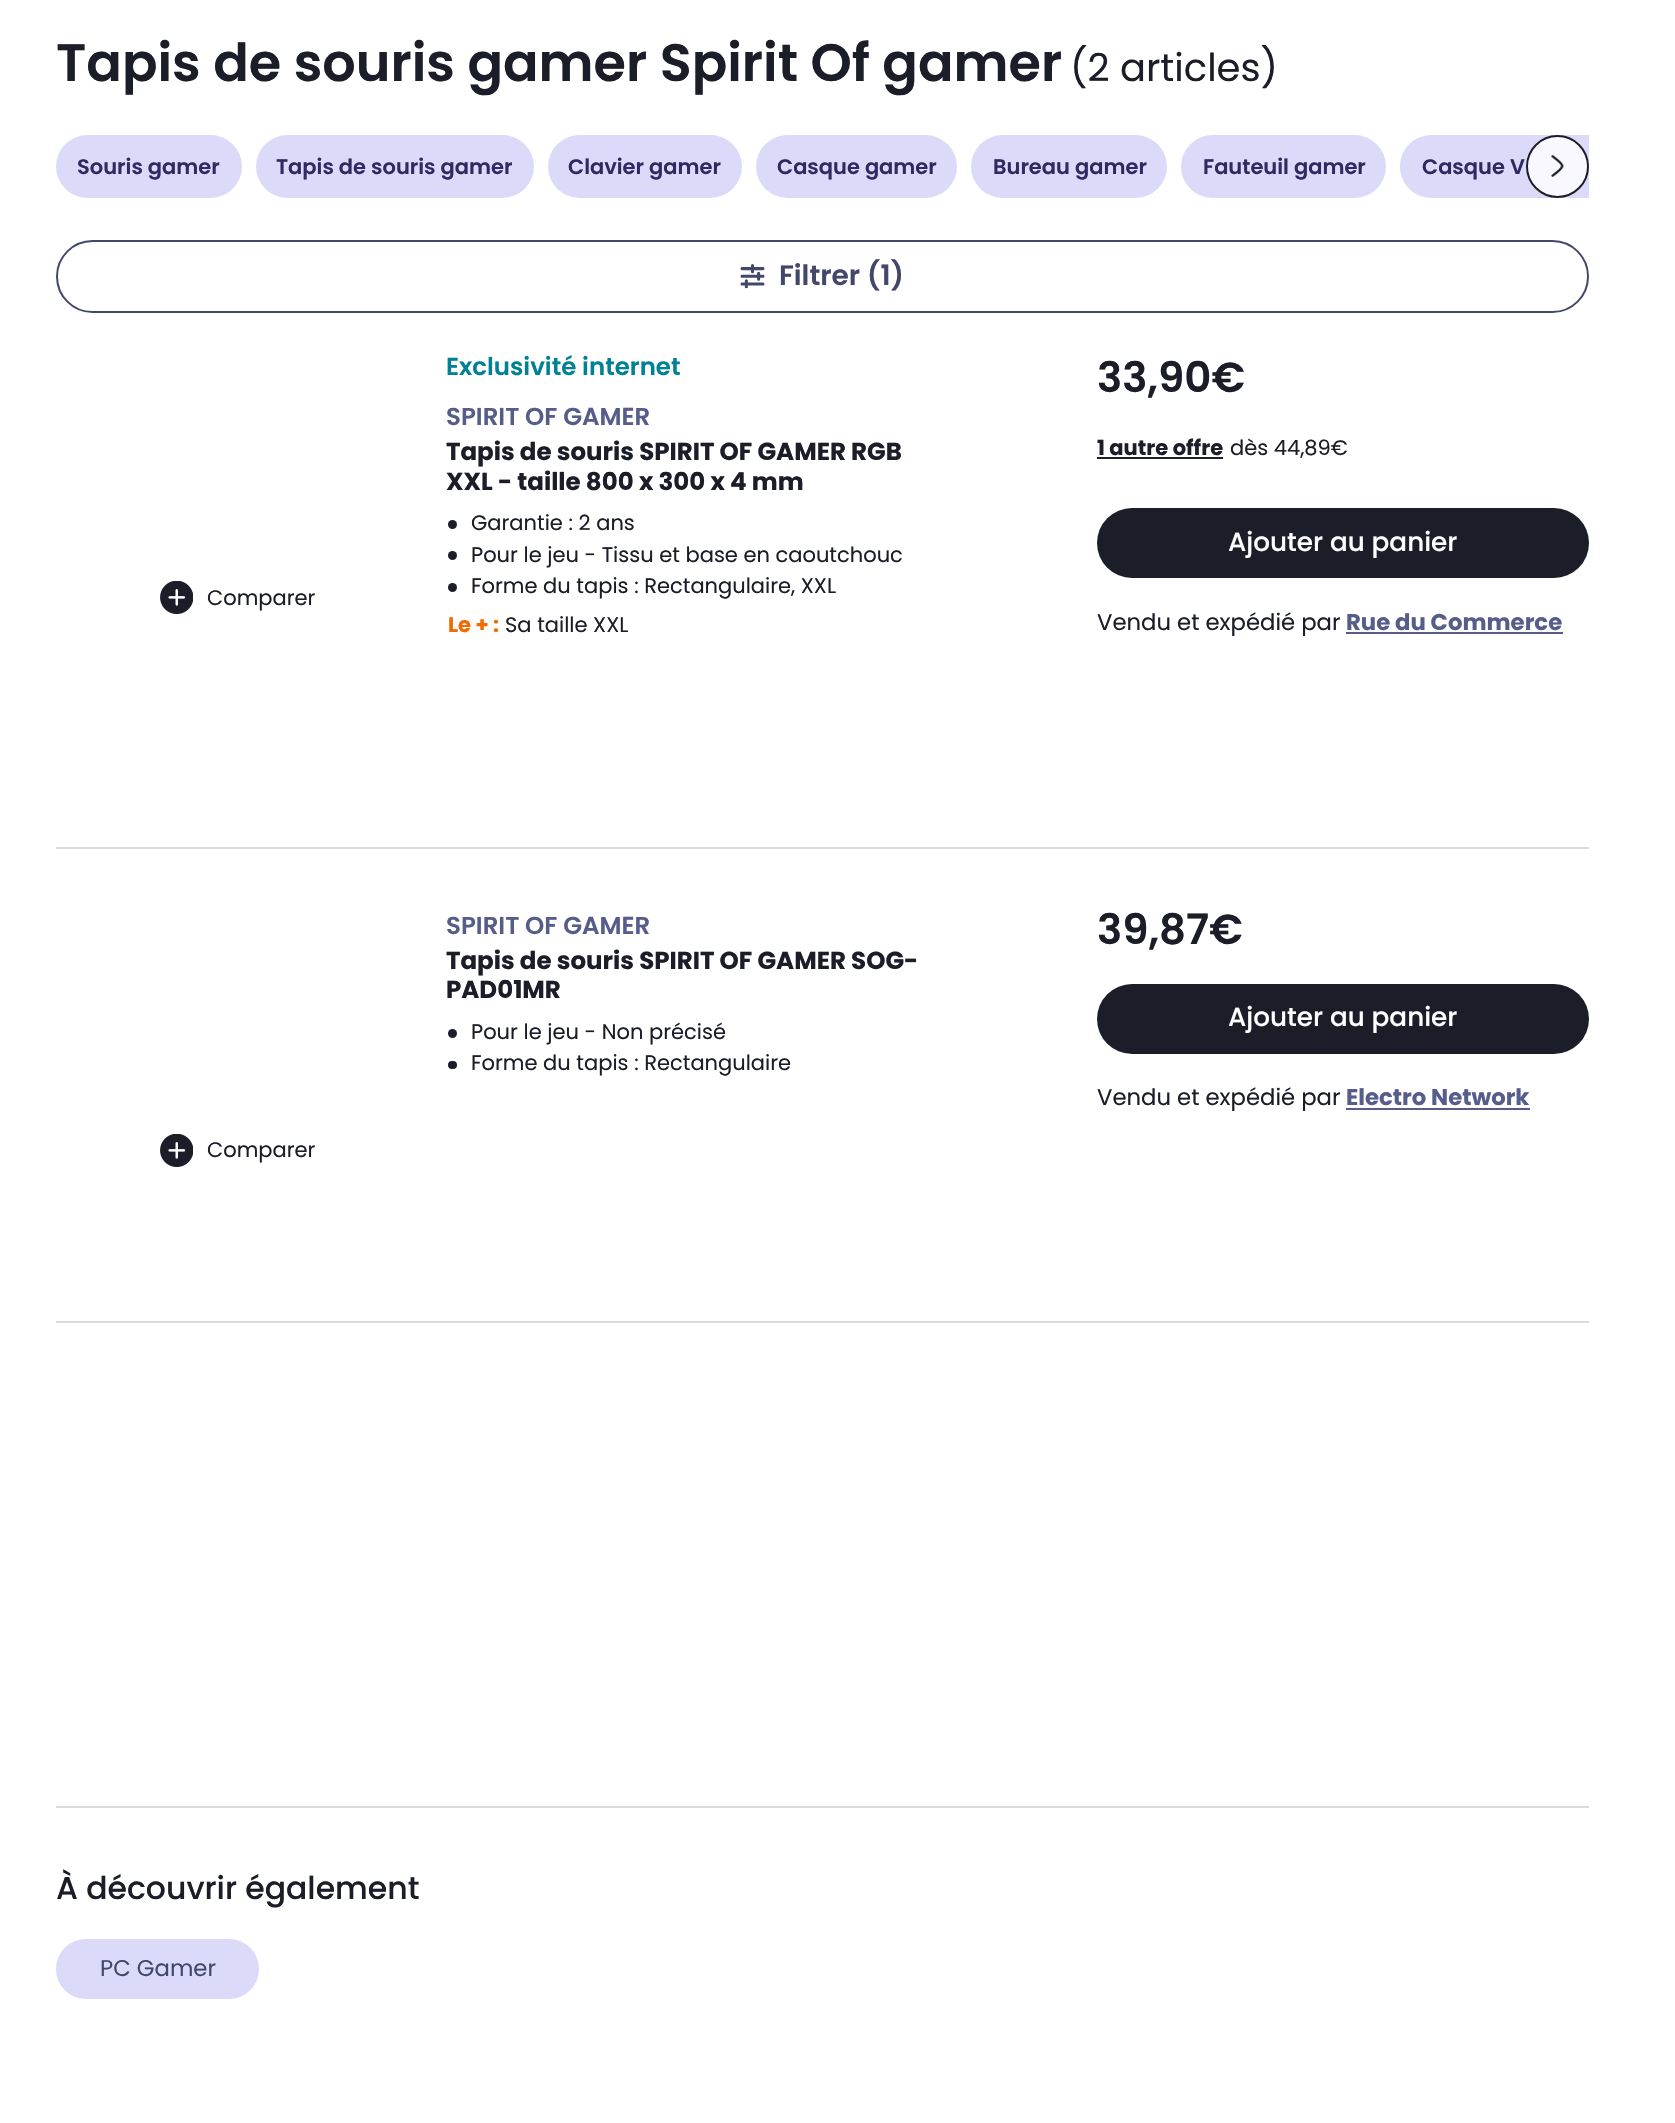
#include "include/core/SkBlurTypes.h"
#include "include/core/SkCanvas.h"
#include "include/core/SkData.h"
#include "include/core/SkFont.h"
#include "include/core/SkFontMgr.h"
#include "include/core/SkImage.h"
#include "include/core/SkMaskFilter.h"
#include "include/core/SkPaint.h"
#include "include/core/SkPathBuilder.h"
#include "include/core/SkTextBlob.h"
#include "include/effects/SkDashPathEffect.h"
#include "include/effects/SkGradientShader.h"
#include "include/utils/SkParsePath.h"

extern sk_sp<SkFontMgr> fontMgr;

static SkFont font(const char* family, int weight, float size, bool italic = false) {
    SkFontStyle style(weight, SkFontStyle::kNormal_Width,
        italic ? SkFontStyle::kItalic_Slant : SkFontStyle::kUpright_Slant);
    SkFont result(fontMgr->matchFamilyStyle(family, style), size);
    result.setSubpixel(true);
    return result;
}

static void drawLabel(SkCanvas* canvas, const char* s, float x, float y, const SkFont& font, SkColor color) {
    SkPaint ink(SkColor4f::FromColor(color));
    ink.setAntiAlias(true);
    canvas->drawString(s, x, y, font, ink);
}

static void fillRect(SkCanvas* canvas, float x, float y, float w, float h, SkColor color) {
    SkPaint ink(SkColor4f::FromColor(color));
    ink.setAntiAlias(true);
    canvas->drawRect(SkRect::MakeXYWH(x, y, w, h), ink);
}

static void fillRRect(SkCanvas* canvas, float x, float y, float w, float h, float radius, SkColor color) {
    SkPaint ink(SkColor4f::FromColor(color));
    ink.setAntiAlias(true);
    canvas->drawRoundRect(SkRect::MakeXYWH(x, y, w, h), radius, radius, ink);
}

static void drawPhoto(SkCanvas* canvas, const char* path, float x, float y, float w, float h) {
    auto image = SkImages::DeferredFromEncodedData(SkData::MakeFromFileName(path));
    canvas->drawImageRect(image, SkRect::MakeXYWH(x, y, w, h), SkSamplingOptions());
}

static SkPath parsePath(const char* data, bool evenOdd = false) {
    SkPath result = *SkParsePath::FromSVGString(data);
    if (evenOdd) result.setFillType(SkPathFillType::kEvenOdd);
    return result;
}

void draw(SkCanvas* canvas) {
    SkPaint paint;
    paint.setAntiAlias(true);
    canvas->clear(0xFFFFFFFF);
    SkFont font1 = font("Poppins", 600, 52.5f);
    drawLabel(canvas, "Tapis de souris gamer Spirit Of gamer", 56, 81, font1, 0xFF1B1D29);
    SkFont font2 = font("Poppins", 400, 38.5f);
    drawLabel(canvas, "(2 articles)", 1070, 81, font2, 0xFF1B1D29);
    fillRRect(canvas, 56, 135, 186, 63, 31.5f, 0xFFDBDBF9);
    SkFont font3 = font("Poppins", 600, 21);
    drawLabel(canvas, "Souris gamer", 77, 174, font3, 0xFF302A63);
    fillRRect(canvas, 256, 135, 278, 63, 31.5f, 0xFFDBDBF9);
    drawLabel(canvas, "Tapis de souris gamer", 276, 174, font3, 0xFF302A63);
    fillRRect(canvas, 548, 135, 194, 63, 31.5f, 0xFFDBDBF9);
    drawLabel(canvas, "Clavier gamer", 568, 174, font3, 0xFF302A63);
    fillRRect(canvas, 756, 135, 201, 63, 31.5f, 0xFFDBDBF9);
    drawLabel(canvas, "Casque gamer", 777, 174, font3, 0xFF302A63);
    fillRRect(canvas, 971, 135, 196, 63, 31.5f, 0xFFDBDBF9);
    drawLabel(canvas, "Bureau gamer", 993, 174, font3, 0xFF302A63);
    fillRRect(canvas, 1181, 135, 205, 63, 31.5f, 0xFFDBDBF9);
    drawLabel(canvas, "Fauteuil gamer", 1203, 174, font3, 0xFF302A63);
    paint.setColor(0xFFDBDBF9);
    canvas->drawPath(parsePath("M1431.5 135H1589V198H1431.5C1414 198 1400 184 1400 166.5C1400 149 1414 135 1431.5 135Z"), paint);
    drawLabel(canvas, "Casque V", 1422, 174, font3, 0xFF302A63);
    paint.setColor(0xCCFFFFFF);
    canvas->drawCircle(1557.5f, 166.5f, 30.5f, paint);
    paint.setStroke(true);
    paint.setStrokeWidth(2);
    paint.setColor(0xFF1B1D29);
    canvas->drawCircle(1557.5f, 166.5f, 30.5f, paint);
    drawPhoto(canvas, "assets/img1.png", 1551, 155, 13, 22);
    paint.setColor(0xFF43486B);
    canvas->drawRoundRect(SkRect::MakeXYWH(57, 241, 1531, 71), 35.5f, 35.5f, paint);
    drawPhoto(canvas, "assets/img2.png", 740, 264, 25, 25);
    SkFont font4 = font("Poppins", 600, 28);
    drawLabel(canvas, "Filtrer (1)", 779, 285, font4, 0xFF43486B);
    SkFont font5 = font("Poppins", 600, 24.5f);
    drawLabel(canvas, "Exclusivité internet", 446, 375, font5, 0xFF008196);
    drawLabel(canvas, "SPIRIT OF GAMER", 446, 425, font5, 0xFF565D8A);
    SkFont font6 = font("Poppins", 700, 24.5f);
    drawLabel(canvas, "Tapis de souris SPIRIT OF GAMER RGB", 446, 460, font6, 0xFF1B1D29);
    drawLabel(canvas, "XXL - taille 800 x 300 x 4 mm", 446, 490, font6, 0xFF1B1D29);
    paint.setStroke(false);
    paint.setColor(0xFF1B1D29);
    canvas->drawCircle(452.5f, 524.5f, 4.5f, paint);
    SkFont font7 = font("Poppins", 400, 21);
    drawLabel(canvas, "Garantie : 2 ans", 471, 530, font7, 0xFF1B1D29);
    canvas->drawCircle(452.5f, 555.5f, 4.5f, paint);
    drawLabel(canvas, "Pour le jeu - Tissu et base en caoutchouc", 471, 562, font7, 0xFF1B1D29);
    canvas->drawCircle(452.5f, 587.5f, 4.5f, paint);
    drawLabel(canvas, "Forme du tapis : Rectangulaire, XXL", 471, 593, font7, 0xFF1B1D29);
    SkFont font8 = font("Poppins", 700, 21);
    drawLabel(canvas, "Le + :", 448, 632, font8, 0xFFF56A00);
    drawLabel(canvas, "Sa taille XXL", 505, 632, font7, 0xFF1B1D29);
    SkFont font9 = font("Poppins", 600, 42);
    drawLabel(canvas, "33,90€", 1097, 392, font9, 0xFF1B1D29);
    drawLabel(canvas, "1 autre offre", 1097, 455, font8, 0xFF1B1D29);
    fillRect(canvas, 1097, 457, 126, 2, 0xFF1B1D29);
    drawLabel(canvas, "dès 44,89€", 1230, 455, font7, 0xFF1B1D29);
    drawPhoto(canvas, "assets/img3.png", 160, 581, 33, 33);
    drawLabel(canvas, "Comparer", 207, 605, font7, 0xFF1B1D29);
    fillRRect(canvas, 1097, 508, 492, 70, 35, 0xFF1B1D29);
    SkFont font10 = font("Poppins", 500, 26.25f);
    drawLabel(canvas, "Ajouter au panier", 1228, 551, font10, 0xFFFFFFFF);
    SkFont font11 = font("Poppins", 400, 22.75f);
    drawLabel(canvas, "Vendu et expédié par", 1097, 630, font11, 0xFF1B1D29);
    SkFont font12 = font("Poppins", 700, 22.75f);
    drawLabel(canvas, "Rue du Commerce", 1346, 630, font12, 0xFF565D8A);
    fillRect(canvas, 1346, 632, 217, 2, 0xFF565D8A);
    fillRect(canvas, 56, 847, 1533, 2, 0xFFDBDBDB);
    drawLabel(canvas, "SPIRIT OF GAMER", 446, 934, font5, 0xFF565D8A);
    drawLabel(canvas, "Tapis de souris SPIRIT OF GAMER SOG-", 446, 969, font6, 0xFF1B1D29);
    drawLabel(canvas, "PAD01MR", 446, 998, font6, 0xFF1B1D29);
    canvas->drawCircle(452.5f, 1033.5f, 4.5f, paint);
    drawLabel(canvas, "Pour le jeu - Non précisé", 471, 1039, font7, 0xFF1B1D29);
    fillRRect(canvas, 448, 1061, 9, 8, 4, 0xFF1B1D29);
    drawLabel(canvas, "Forme du tapis : Rectangulaire", 471, 1070, font7, 0xFF1B1D29);
    drawLabel(canvas, "39,87€", 1097, 944, font9, 0xFF1B1D29);
    fillRRect(canvas, 1097, 984, 492, 70, 35, 0xFF1B1D29);
    drawLabel(canvas, "Ajouter au panier", 1228, 1026, font10, 0xFFFFFFFF);
    drawLabel(canvas, "Vendu et expédié par", 1097, 1105, font11, 0xFF1B1D29);
    drawLabel(canvas, "Electro Network", 1346, 1105, font12, 0xFF565D8A);
    fillRect(canvas, 1346, 1108, 184, 2, 0xFF565D8A);
    drawPhoto(canvas, "assets/img3.png", 160, 1134, 33, 33);
    drawLabel(canvas, "Comparer", 207, 1157, font7, 0xFF1B1D29);
    fillRect(canvas, 56, 1321, 1533, 2, 0xFFDBDBDB);
    fillRect(canvas, 56, 1806, 1533, 2, 0xFFDBDBDB);
    SkFont font13 = font("Poppins", 500, 31.5f);
    drawLabel(canvas, "À découvrir également", 56, 1899, font13, 0xFF1B1D29);
    paint.setColor(0xFFDBDBF9);
    canvas->drawRoundRect(SkRect::MakeXYWH(57, 1940, 201, 58), 29, 29, paint);
    paint.setStroke(true);
    canvas->drawRoundRect(SkRect::MakeXYWH(57, 1940, 201, 58), 29, 29, paint);
    drawLabel(canvas, "PC Gamer", 100, 1976, font11, 0xFF43486B);
}
